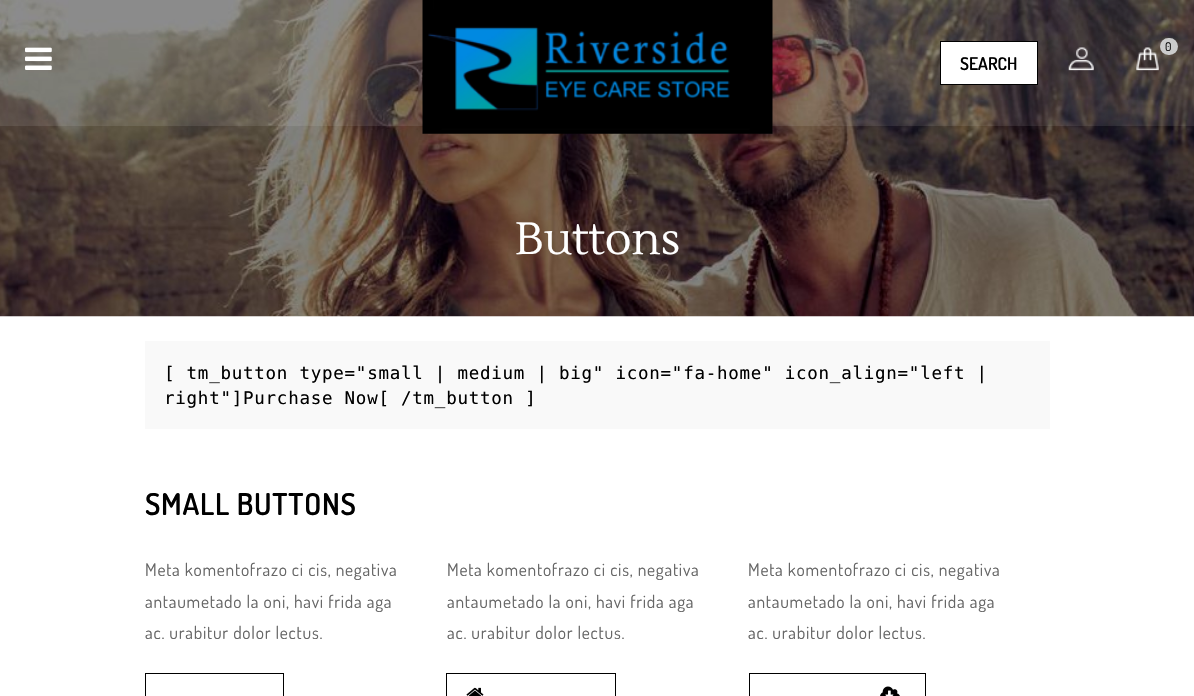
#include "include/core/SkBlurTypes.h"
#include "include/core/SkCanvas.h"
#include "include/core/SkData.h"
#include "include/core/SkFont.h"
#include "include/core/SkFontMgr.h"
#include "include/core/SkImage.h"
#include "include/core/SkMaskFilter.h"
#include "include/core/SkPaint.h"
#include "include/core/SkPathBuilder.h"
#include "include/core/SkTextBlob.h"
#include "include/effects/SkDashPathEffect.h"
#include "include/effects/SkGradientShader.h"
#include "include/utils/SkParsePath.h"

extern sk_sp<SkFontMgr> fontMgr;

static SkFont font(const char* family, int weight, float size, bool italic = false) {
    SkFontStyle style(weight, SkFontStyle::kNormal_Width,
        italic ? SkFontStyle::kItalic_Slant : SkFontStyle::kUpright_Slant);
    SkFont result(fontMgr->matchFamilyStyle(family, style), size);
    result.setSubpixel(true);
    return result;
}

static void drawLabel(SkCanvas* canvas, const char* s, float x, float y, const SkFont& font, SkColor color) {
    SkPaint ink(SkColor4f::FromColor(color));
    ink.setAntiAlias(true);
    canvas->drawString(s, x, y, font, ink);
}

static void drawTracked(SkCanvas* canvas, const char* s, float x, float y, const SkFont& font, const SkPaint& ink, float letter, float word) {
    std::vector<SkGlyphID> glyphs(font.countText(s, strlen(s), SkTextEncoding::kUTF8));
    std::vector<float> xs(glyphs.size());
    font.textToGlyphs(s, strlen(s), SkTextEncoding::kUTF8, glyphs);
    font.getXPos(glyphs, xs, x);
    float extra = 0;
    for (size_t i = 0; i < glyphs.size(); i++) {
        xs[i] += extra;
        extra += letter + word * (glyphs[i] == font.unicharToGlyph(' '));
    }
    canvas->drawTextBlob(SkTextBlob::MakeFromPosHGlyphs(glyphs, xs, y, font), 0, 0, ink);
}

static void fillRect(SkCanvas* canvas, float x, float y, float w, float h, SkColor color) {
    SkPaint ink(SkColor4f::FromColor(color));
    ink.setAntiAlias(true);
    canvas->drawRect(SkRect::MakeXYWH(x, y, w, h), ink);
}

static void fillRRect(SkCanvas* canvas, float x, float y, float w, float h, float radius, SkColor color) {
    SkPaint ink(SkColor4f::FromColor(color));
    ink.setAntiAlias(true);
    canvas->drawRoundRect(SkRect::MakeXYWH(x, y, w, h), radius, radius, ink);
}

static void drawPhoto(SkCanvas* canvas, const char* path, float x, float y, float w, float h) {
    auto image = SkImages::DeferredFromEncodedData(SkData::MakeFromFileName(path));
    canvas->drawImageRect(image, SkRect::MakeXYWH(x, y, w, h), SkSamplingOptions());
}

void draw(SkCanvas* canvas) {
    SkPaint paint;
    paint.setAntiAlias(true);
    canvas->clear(0xFFFFFFFF);
    drawPhoto(canvas, "assets/img5.png", 0, 0, 1194, 317);
    fillRect(canvas, 0, 0, 1194, 126, 0x1AE8E8E8);
    drawPhoto(canvas, "assets/img1.png", 25, 47, 27, 23);
    drawPhoto(canvas, "assets/img2.png", 422, 0, 351, 134);
    paint.setColor(0xFFFFFFFF);
    canvas->drawRect(SkRect::MakeXYWH(940.5f, 41.5f, 97, 43), paint);
    paint.setStroke(true);
    paint.setStrokeWidth(1);
    paint.setColor(0xFF000000);
    canvas->drawRect(SkRect::MakeXYWH(940.5f, 41.5f, 97, 43), paint);
    SkFont font1 = font("Dosis", 600, 17.5f);
    drawLabel(canvas, "SEARCH", 960, 70, font1, 0xFF000000);
    drawPhoto(canvas, "assets/img3.png", 1068, 47, 26, 24);
    drawPhoto(canvas, "assets/img4.png", 1136, 47, 23, 24);
    fillRRect(canvas, 1160, 38, 18, 17, 8.5f, 0xFFCCCCCC);
    SkFont font2 = font("Dosis", 400, 12);
    paint.setStroke(false);
    drawTracked(canvas, "0", 1165, 51, font2, paint, 0.75f, 0);
    SkFont font3 = font("Lustria", 400, 45);
    drawLabel(canvas, "Buttons", 515, 254, font3, 0xFFFFFFFF);
    fillRect(canvas, 145, 341, 905, 88, 0xFFF9F9F9);
    SkFont font4 = font("DejaVu Sans Mono", 400, 17.5f);
    drawTracked(canvas, "[ tm_button type=\"small | medium | big\" icon=\"fa-home\" icon_align=\"left |", 164, 379, font4, paint, 0.75f, 0);
    drawTracked(canvas, "right\"]Purchase Now[ /tm_button ]", 164, 404, font4, paint, 0.75f, 0);
    SkFont font5 = font("Dosis", 600, 30);
    drawTracked(canvas, "SMALL BUTTONS", 145, 515, font5, paint, 0.75f, 0);
    SkFont font6 = font("Dosis", 400, 17.5f);
    paint.setColor(0xFF666666);
    drawTracked(canvas, "Meta komentofrazo ci cis, negativa", 145, 576, font6, paint, 0.75f, 0);
    drawTracked(canvas, "antaumetado la oni, havi frida aga", 145, 608, font6, paint, 0.75f, 0);
    drawTracked(canvas, "ac. urabitur dolor lectus.", 145, 639, font6, paint, 0.75f, 0);
    paint.setStroke(true);
    paint.setColor(0xFF000000);
    canvas->drawRect(SkRect::MakeXYWH(145.5f, 673.5f, 138, 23), paint);
    paint.setStroke(false);
    paint.setColor(0xFF666666);
    drawTracked(canvas, "Meta komentofrazo ci cis, negativa", 447, 576, font6, paint, 0.75f, 0);
    drawTracked(canvas, "antaumetado la oni, havi frida aga", 447, 608, font6, paint, 0.75f, 0);
    drawTracked(canvas, "ac. urabitur dolor lectus.", 447, 639, font6, paint, 0.75f, 0);
    paint.setStroke(true);
    paint.setColor(0xFF000000);
    canvas->drawRect(SkRect::MakeXYWH(446.5f, 673.5f, 169, 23), paint);
    drawPhoto(canvas, "assets/img6.png", 466, 687, 18, 9);
    paint.setStroke(false);
    paint.setColor(0xFF666666);
    drawTracked(canvas, "Meta komentofrazo ci cis, negativa", 748, 576, font6, paint, 0.75f, 0);
    drawTracked(canvas, "antaumetado la oni, havi frida aga", 748, 608, font6, paint, 0.75f, 0);
    drawTracked(canvas, "ac. urabitur dolor lectus.", 748, 639, font6, paint, 0.75f, 0);
    paint.setStroke(true);
    paint.setColor(0xFF000000);
    canvas->drawRect(SkRect::MakeXYWH(749.5f, 673.5f, 176, 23), paint);
    drawPhoto(canvas, "assets/img7.png", 880, 686, 20, 10);
}
